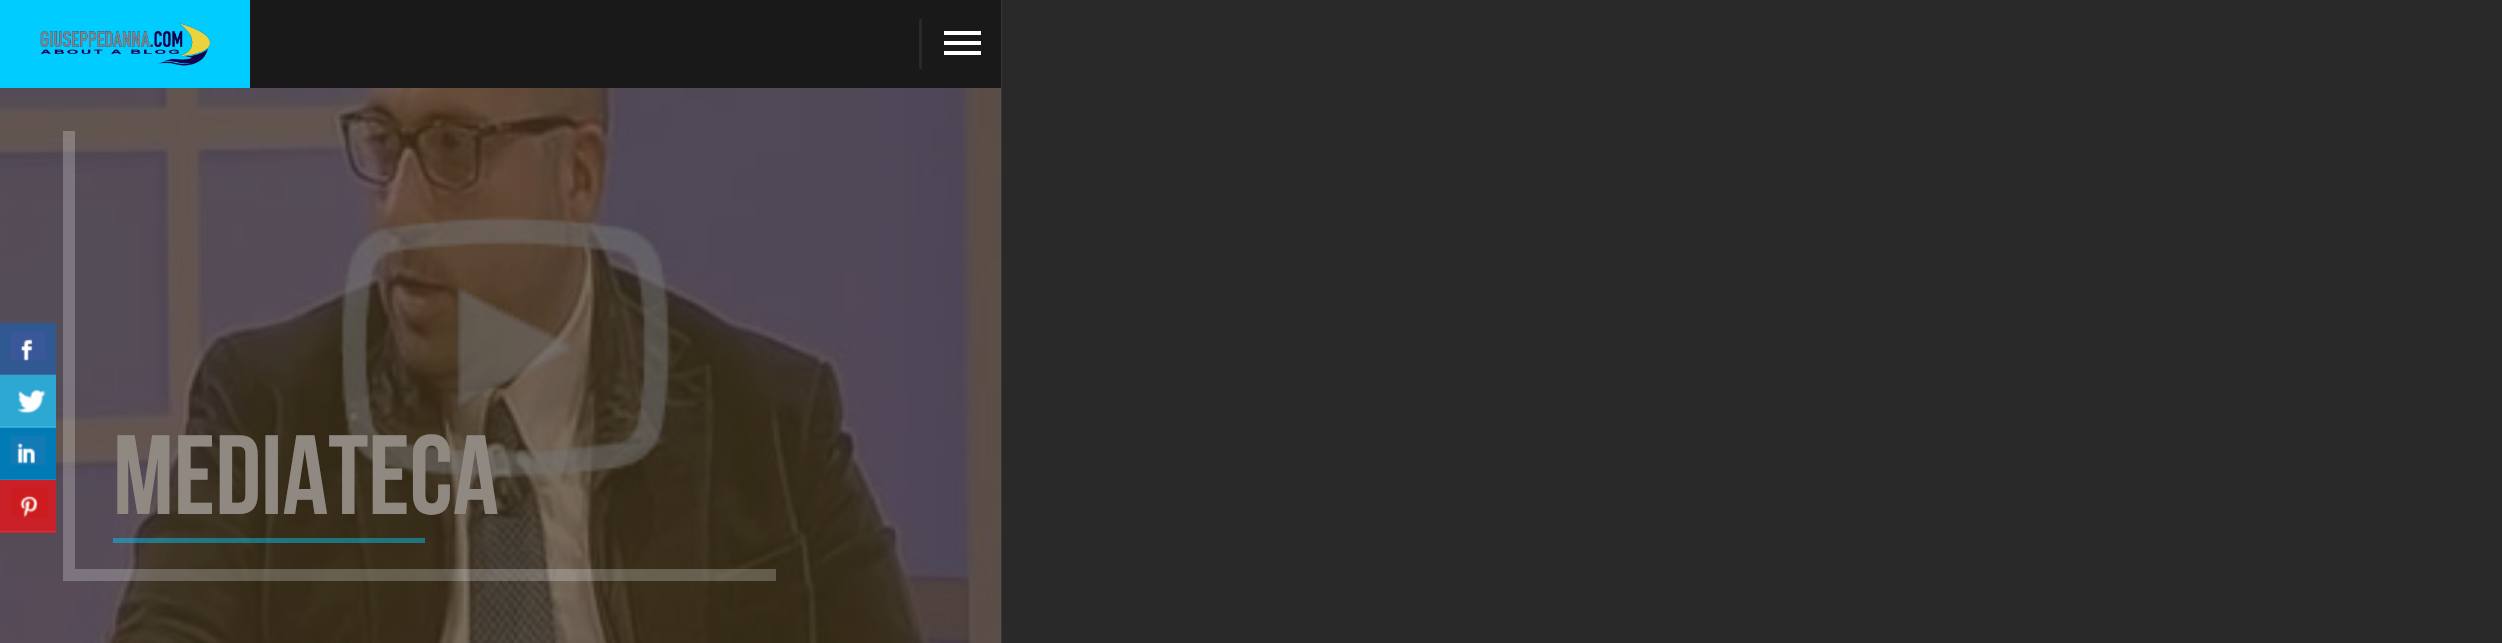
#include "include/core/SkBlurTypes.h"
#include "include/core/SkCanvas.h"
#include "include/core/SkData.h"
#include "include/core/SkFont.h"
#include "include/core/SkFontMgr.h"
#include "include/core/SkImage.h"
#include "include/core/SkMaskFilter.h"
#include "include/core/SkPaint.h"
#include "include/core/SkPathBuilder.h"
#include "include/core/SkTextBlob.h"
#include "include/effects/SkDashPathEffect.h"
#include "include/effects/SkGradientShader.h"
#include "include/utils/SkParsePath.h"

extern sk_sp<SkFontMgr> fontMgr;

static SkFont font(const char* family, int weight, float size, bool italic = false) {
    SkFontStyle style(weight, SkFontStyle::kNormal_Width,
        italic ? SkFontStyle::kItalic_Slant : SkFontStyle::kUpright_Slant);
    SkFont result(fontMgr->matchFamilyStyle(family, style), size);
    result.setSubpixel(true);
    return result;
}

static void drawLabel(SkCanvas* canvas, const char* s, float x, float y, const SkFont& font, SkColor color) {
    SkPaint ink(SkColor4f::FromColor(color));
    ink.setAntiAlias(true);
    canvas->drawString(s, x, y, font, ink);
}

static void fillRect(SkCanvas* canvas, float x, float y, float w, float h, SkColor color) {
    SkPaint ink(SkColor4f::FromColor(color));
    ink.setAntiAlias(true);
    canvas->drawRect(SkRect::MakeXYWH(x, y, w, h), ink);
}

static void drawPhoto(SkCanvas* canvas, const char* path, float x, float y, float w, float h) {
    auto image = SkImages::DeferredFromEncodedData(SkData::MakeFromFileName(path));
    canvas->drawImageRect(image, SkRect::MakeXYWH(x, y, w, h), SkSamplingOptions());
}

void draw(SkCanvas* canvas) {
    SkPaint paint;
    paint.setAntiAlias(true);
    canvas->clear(0xFF292929);
    fillRect(canvas, 0, 88, 1001, 555, 0xFF242424);
    drawPhoto(canvas, "assets/img6.png", 0, 0, 1002, 643);
    fillRect(canvas, 0, 323, 56, 51, 0xFF305891);
    fillRect(canvas, 0, 374, 56, 1, 0xFF45699C);
    drawPhoto(canvas, "assets/img1.png", 11, 331, 35, 30);
    fillRect(canvas, 0, 375, 56, 53, 0xFF2CA8D2);
    fillRect(canvas, 0, 426, 56, 1, 0xFF41B1D7);
    drawPhoto(canvas, "assets/img2.png", 17, 389, 29, 25);
    fillRect(canvas, 0, 428, 56, 51, 0xFF007BB6);
    fillRect(canvas, 0, 479, 56, 1, 0xFF1A88BD);
    drawPhoto(canvas, "assets/img3.png", 10, 435, 36, 30);
    fillRect(canvas, 0, 480, 56, 53, 0xFFCA2027);
    fillRect(canvas, 0, 531, 56, 1, 0xFFCF363D);
    drawPhoto(canvas, "assets/img4.png", 11, 487, 37, 31);
    fillRect(canvas, 250, 0, 751, 88, 0xFF191919);
    fillRect(canvas, 0, 0, 250, 88, 0xFF00CCFF);
    drawPhoto(canvas, "assets/img5.png", 40, 23, 170, 43);
    fillRect(canvas, 919, 19, 3, 50, 0xFF292929);
    fillRect(canvas, 944, 31, 37, 4, 0xFFFFFFFF);
    fillRect(canvas, 944, 41, 37, 4, 0xFFFFFFFF);
    fillRect(canvas, 944, 51, 37, 4, 0xFFFFFFFF);
    fillRect(canvas, 63, 131, 12, 450, 0x3BFFFFFF);
    SkFont font1 = font("Bebas Neue", 700, 112.5f);
    drawLabel(canvas, "MEDIATECA", 113, 514, font1, 0xFF908982);
    fillRect(canvas, 113, 538, 312, 5, 0x7000CCFF);
    fillRect(canvas, 75, 569, 701, 12, 0x3BFFFFFF);
}
